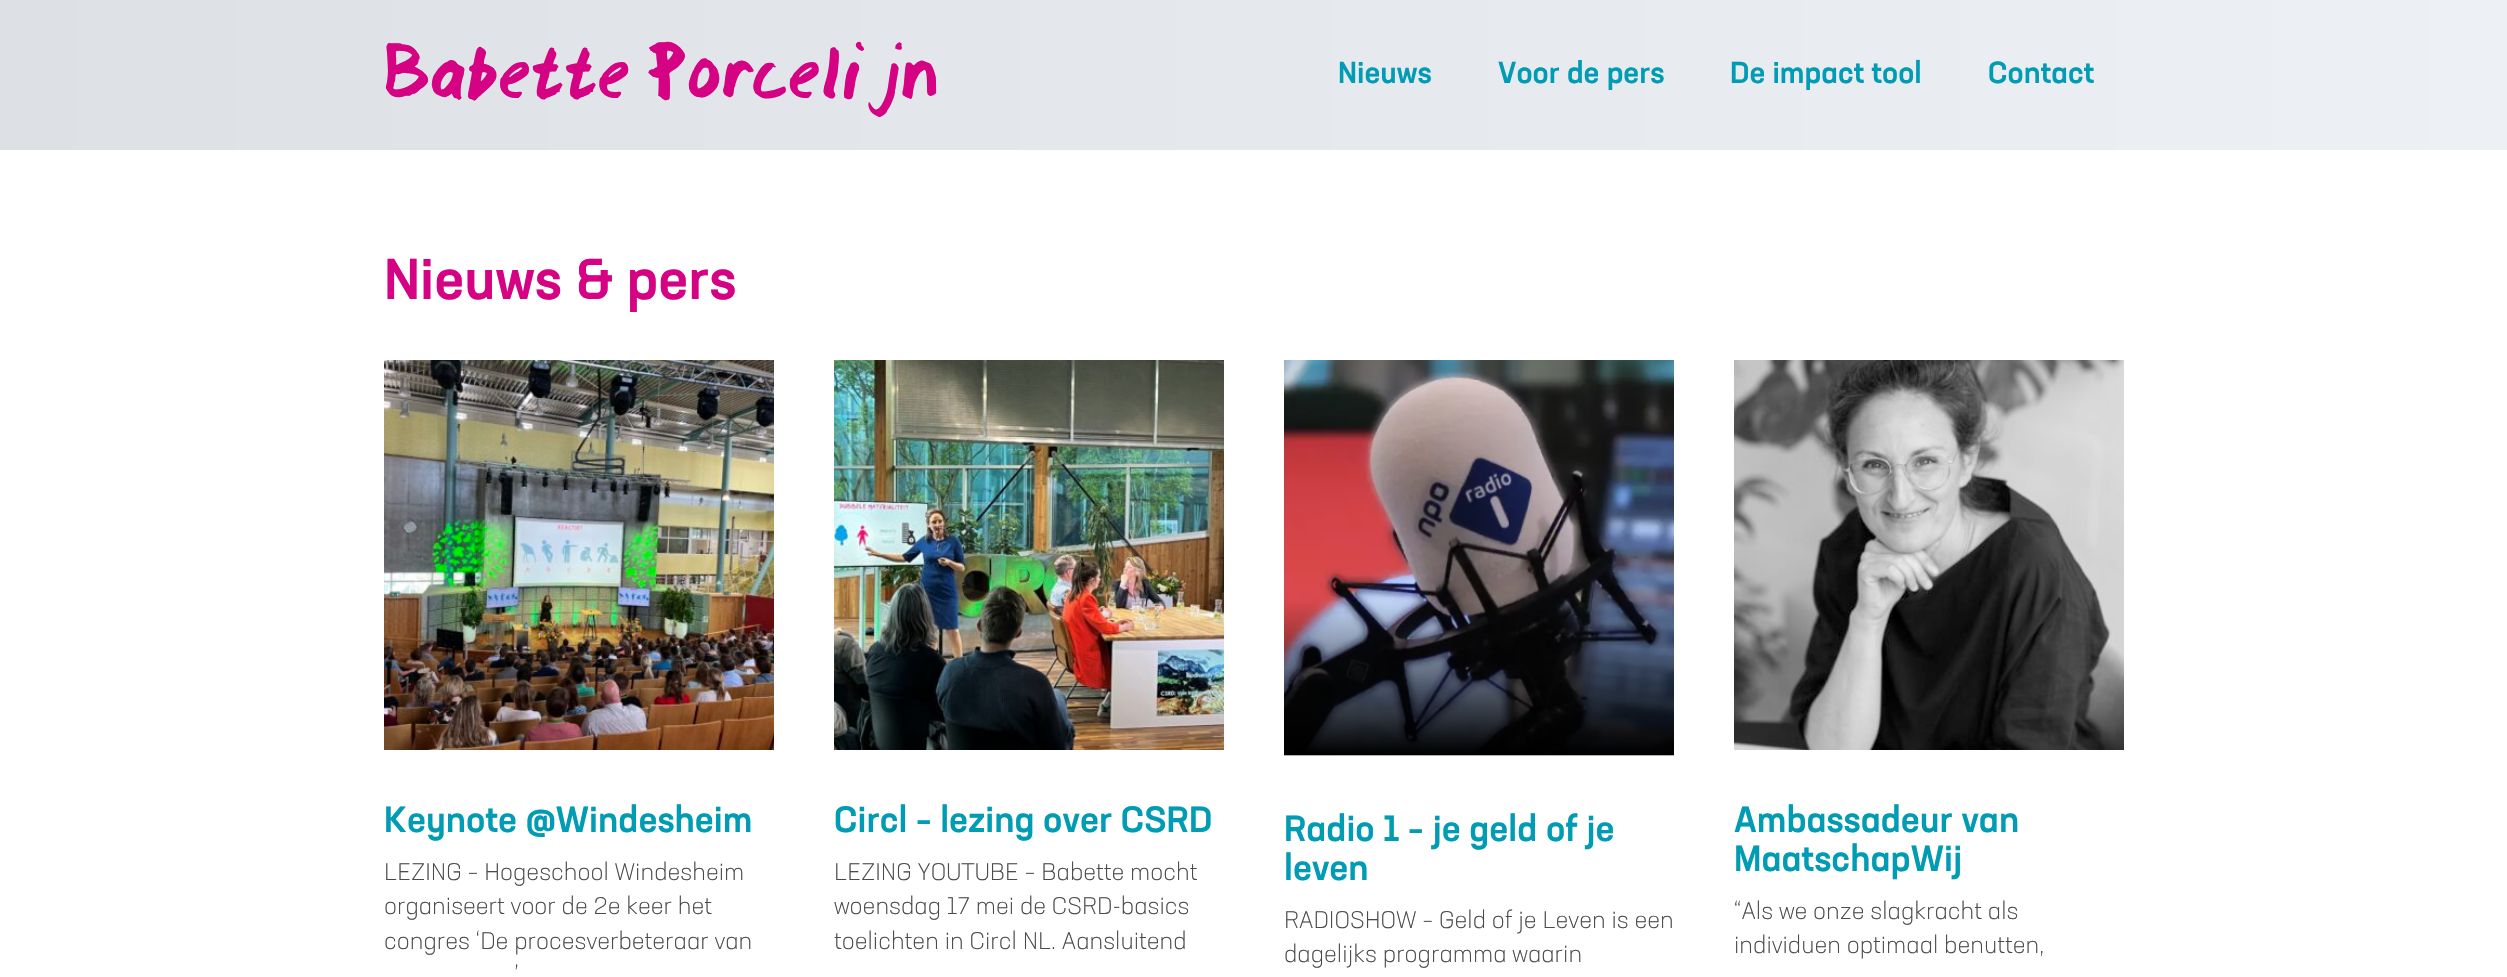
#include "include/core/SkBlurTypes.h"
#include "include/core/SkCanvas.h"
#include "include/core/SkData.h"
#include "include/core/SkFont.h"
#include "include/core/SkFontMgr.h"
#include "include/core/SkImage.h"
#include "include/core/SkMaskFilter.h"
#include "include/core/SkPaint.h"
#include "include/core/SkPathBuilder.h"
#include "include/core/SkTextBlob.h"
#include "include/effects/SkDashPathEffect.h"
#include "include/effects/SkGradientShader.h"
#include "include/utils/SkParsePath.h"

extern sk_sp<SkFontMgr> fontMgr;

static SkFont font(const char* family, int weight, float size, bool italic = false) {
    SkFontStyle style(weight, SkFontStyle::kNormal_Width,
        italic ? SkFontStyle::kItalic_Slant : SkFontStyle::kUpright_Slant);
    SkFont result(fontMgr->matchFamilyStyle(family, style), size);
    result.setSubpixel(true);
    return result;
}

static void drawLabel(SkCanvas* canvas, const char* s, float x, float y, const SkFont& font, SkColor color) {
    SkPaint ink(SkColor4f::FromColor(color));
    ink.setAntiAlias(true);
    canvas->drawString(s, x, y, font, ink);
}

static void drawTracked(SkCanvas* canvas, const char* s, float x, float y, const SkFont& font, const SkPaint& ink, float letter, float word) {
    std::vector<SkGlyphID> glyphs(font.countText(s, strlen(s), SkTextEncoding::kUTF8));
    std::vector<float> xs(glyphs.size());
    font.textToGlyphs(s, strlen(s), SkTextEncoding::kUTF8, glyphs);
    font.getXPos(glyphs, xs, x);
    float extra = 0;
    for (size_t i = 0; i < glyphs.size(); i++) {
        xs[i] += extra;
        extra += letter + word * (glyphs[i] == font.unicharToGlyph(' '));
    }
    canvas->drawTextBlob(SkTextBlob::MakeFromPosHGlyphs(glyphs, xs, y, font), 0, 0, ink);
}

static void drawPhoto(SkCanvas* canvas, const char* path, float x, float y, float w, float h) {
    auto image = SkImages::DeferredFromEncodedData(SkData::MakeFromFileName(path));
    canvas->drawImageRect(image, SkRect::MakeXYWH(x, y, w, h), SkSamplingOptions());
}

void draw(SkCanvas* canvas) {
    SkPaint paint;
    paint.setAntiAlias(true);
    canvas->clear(0xFFFFFFFF);
    {
        const SkColor colors[] = {0xFFDDE0E4, 0xFFEDF1F5};
        const float stops[] = {0, 1};
        const SkPoint ends[] = {{0, 75}, {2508, 75}};
        paint.setShader(SkGradientShader::MakeLinear(ends, colors, stops, 2, SkTileMode::kClamp));
        paint.setAlpha(255);
    }
    canvas->drawRect(SkRect::MakeXYWH(0, 0, 2507, 150), paint);
    SkFont font1 = font("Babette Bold", 700, 96);
    paint.setShader(nullptr);
    paint.setColor(0xFFD50283);
    drawTracked(canvas, "Babette Porcelijn", 384, 108, font1, paint, 0, -3);
    SkFont font2 = font("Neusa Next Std", 500, 30);
    drawLabel(canvas, "Nieuws", 1338, 83, font2, 0xFF009CB4);
    drawLabel(canvas, "Voor de pers", 1498, 83, font2, 0xFF009CB4);
    drawLabel(canvas, "De impact tool", 1730, 83, font2, 0xFF009CB4);
    drawLabel(canvas, "Contact", 1988, 83, font2, 0xFF009CB4);
    SkFont font3 = font("Neusa Next Std", 500, 57);
    drawLabel(canvas, "Nieuws & pers", 384, 299, font3, 0xFFD50283);
    drawPhoto(canvas, "assets/img1.png", 384, 360, 390, 390);
    SkFont font4 = font("Neusa Next Std", 500, 36);
    drawLabel(canvas, "Keynote @Windesheim", 384, 832, font4, 0xFF009CB4);
    SkFont font5 = font("Neusa Next Std", 300, 24);
    drawLabel(canvas, "LEZING – Hogeschool Windesheim", 384, 880, font5, 0xFF4A4A4A);
    drawLabel(canvas, "organiseert voor de 2e keer het", 384, 914, font5, 0xFF4A4A4A);
    drawLabel(canvas, "congres ‘De procesverbeteraar van", 384, 949, font5, 0xFF4A4A4A);
    drawLabel(canvas, "’", 514, 983, font5, 0xFF4A4A4A);
    drawPhoto(canvas, "assets/img2.png", 834, 360, 390, 390);
    drawLabel(canvas, "Circl – lezing over CSRD", 834, 832, font4, 0xFF009CB4);
    drawLabel(canvas, "LEZING YOUTUBE – Babette mocht", 834, 880, font5, 0xFF4A4A4A);
    drawLabel(canvas, "woensdag 17 mei de CSRD-basics", 834, 914, font5, 0xFF4A4A4A);
    drawLabel(canvas, "toelichten in Circl NL. Aansluitend", 834, 949, font5, 0xFF4A4A4A);
    drawPhoto(canvas, "assets/img3.png", 1284, 360, 390, 396);
    drawLabel(canvas, "Radio 1 – je geld of je", 1284, 841, font4, 0xFF009CB4);
    drawLabel(canvas, "leven", 1284, 880, font4, 0xFF009CB4);
    drawLabel(canvas, "RADIOSHOW – Geld of je Leven is een", 1284, 928, font5, 0xFF4A4A4A);
    drawLabel(canvas, "dagelijks programma waarin", 1284, 962, font5, 0xFF4A4A4A);
    drawPhoto(canvas, "assets/img4.png", 1734, 360, 390, 390);
    drawLabel(canvas, "Ambassadeur van", 1734, 832, font4, 0xFF009CB4);
    drawLabel(canvas, "MaatschapWij", 1734, 871, font4, 0xFF009CB4);
    drawLabel(canvas, "“Als we onze slagkracht als", 1734, 919, font5, 0xFF4A4A4A);
    drawLabel(canvas, "individuen optimaal benutten,", 1734, 953, font5, 0xFF4A4A4A);
}
